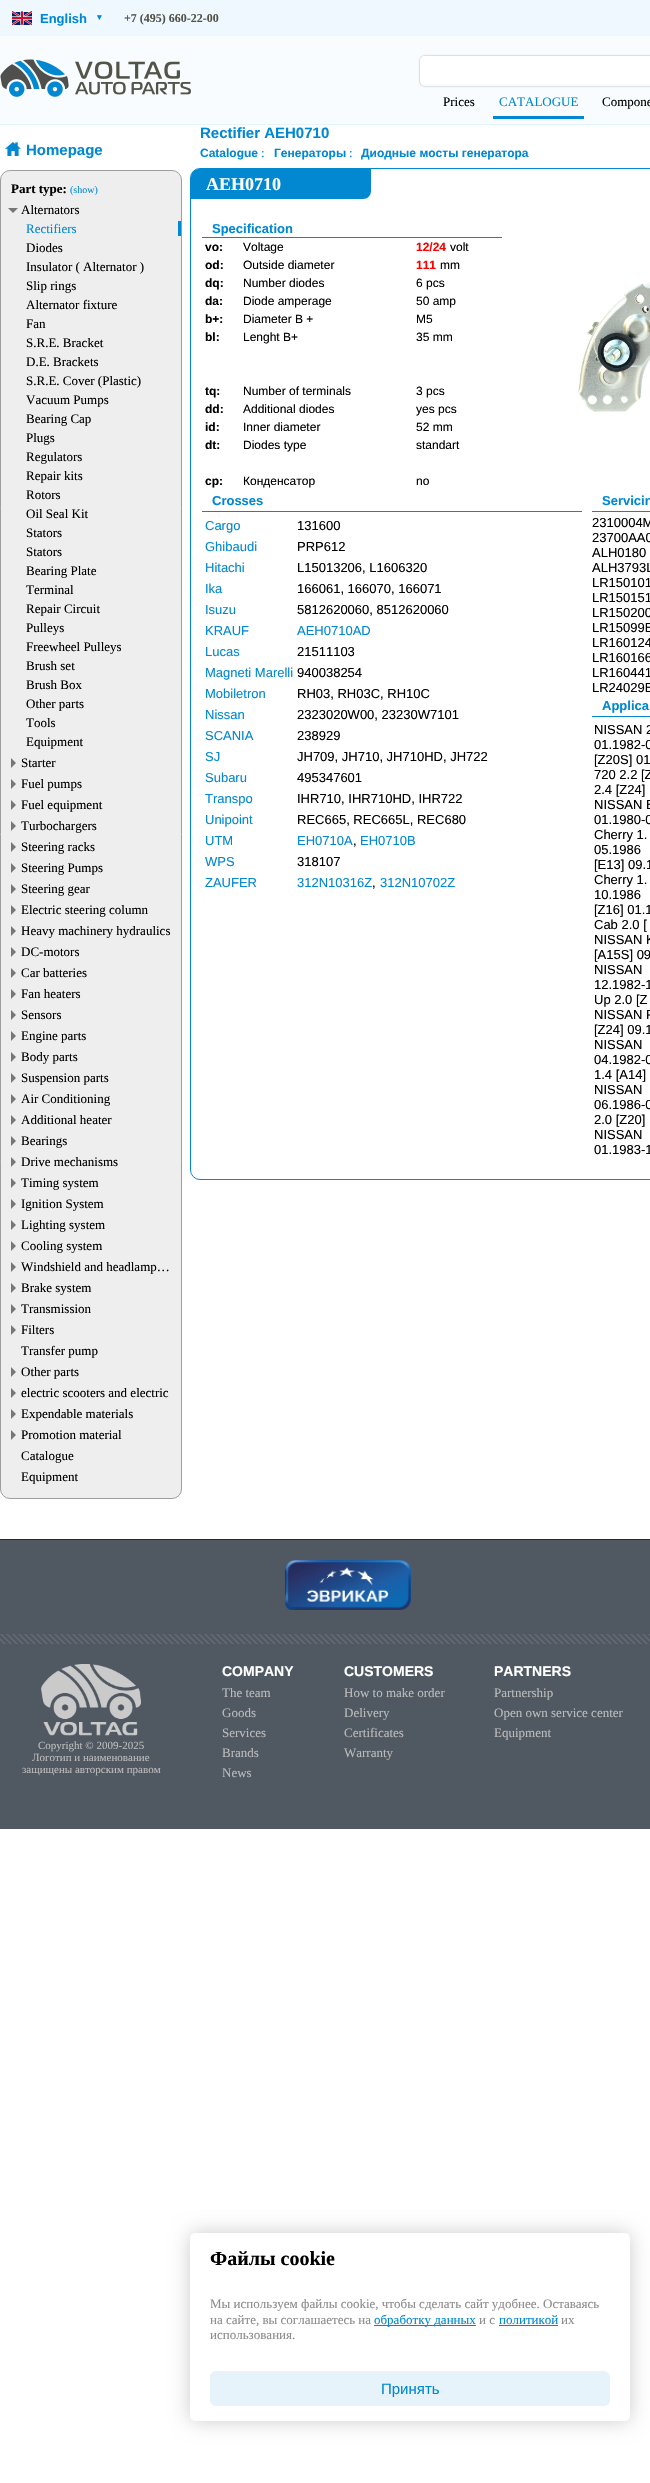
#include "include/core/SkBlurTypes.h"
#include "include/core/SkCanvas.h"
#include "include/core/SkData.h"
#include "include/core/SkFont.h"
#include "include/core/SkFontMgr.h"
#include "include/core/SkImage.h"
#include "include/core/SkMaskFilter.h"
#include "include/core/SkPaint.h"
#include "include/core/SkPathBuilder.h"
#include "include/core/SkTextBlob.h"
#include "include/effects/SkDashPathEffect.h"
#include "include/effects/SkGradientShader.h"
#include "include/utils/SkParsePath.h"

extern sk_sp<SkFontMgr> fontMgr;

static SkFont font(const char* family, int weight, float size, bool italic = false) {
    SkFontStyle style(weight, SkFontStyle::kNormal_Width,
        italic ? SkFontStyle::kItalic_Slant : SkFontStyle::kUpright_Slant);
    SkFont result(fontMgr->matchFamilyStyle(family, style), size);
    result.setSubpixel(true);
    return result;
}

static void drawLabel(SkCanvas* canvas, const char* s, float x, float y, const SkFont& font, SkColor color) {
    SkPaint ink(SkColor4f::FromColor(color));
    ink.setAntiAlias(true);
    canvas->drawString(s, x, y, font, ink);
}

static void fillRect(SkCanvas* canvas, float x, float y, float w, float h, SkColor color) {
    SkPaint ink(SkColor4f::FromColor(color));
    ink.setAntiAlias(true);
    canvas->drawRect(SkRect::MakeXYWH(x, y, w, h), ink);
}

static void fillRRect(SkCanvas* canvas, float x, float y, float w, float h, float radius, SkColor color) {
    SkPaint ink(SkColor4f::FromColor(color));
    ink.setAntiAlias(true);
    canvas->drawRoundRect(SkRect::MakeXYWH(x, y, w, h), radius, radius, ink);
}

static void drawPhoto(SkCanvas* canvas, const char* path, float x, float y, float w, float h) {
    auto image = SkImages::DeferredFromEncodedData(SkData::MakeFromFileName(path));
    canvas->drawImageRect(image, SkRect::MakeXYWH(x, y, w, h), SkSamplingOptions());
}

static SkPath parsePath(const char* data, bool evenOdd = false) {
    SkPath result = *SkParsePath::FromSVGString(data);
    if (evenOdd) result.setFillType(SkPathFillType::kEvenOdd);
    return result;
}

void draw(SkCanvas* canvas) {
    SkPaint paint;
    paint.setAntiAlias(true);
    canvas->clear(0xFFFFFFFF);
    fillRect(canvas, 0, 36, 650, 88, 0xFFF8FCFF);
    fillRect(canvas, 0, 124, 650, 1, 0xFFE1F5FE);
    fillRect(canvas, 0, 0, 650, 36, 0xFFF0F8FF);
    drawPhoto(canvas, "assets/img1.png", 12, 11, 20, 14);
    SkFont font1 = font("Liberation Sans", 700, 13);
    drawLabel(canvas, "English", 40, 23, font1, 0xFF0288D1);
    SkFont font2 = font("DejaVu Sans", 700, 9);
    drawLabel(canvas, "▾", 97, 20, font2, 0xFF0288D1);
    SkFont font3 = font("Liberation Serif", 700, 12);
    drawLabel(canvas, "+7 (495) 660-22-00", 124, 22, font3, 0xFF535448);
    drawPhoto(canvas, "assets/img2.png", 0, 59, 191, 38);
    canvas->save();
    canvas->clipPath(parsePath("M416 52H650V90H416ZM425 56H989C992 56 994 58 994 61V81C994 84 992 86 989 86H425C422 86 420 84 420 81V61C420 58 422 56 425 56Z", true), true);
    paint.setColor(0x80323232);
    paint.setMaskFilter(SkMaskFilter::MakeBlur(kNormal_SkBlurStyle, 1));
    canvas->drawRoundRect(SkRect::MakeXYWH(420, 56, 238, 30), 5, 5, paint);
    paint.setMaskFilter(nullptr);
    canvas->restore();
    paint.setColor(0xFFFFFFFF);
    canvas->drawPath(parsePath("M425 56H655V84H425C422 84 420 82 420 79V61C420 58 422 56 425 56Z"), paint);
    SkFont font4 = font("Liberation Serif", 400, 13);
    drawLabel(canvas, "Prices", 443, 106, font4, 0xFF000000);
    fillRect(canvas, 493, 116, 91, 3, 0xFF0288D1);
    drawLabel(canvas, "CATALOGUE", 499, 106, font4, 0xFF0288D1);
    drawLabel(canvas, "Сompone", 602, 106, font4, 0xFF000000);
    drawPhoto(canvas, "assets/img3.png", 5, 142, 16, 14);
    SkFont font5 = font("Liberation Sans", 700, 15);
    drawLabel(canvas, "Homepage", 26, 155, font5, 0xFF0288D1);
    paint.setColor(0xFFEEEEEE);
    canvas->drawRoundRect(SkRect::MakeXYWH(0.5f, 170.5f, 181, 1328), 9.5f, 9.5f, paint);
    paint.setStroke(true);
    paint.setStrokeWidth(1);
    paint.setColor(0xFF9E9E9E);
    canvas->drawRoundRect(SkRect::MakeXYWH(0.5f, 170.5f, 181, 1328), 9.5f, 9.5f, paint);
    SkFont font6 = font("Liberation Serif", 700, 13);
    drawLabel(canvas, "Part type:", 11, 193, font6, 0xFF000000);
    SkFont font7 = font("Liberation Serif", 400, 10);
    drawLabel(canvas, "(show)", 70, 193, font7, 0xFF0288D1);
    paint.setStroke(false);
    paint.setColor(0xFF777777);
    canvas->drawPath(parsePath("M8 208H18L13 213Z"), paint);
    drawLabel(canvas, "Alternators", 21, 214, font4, 0xFF000000);
    fillRect(canvas, 178, 221, 3, 15, 0xFF0288D1);
    drawLabel(canvas, "Rectifiers", 26, 233, font4, 0xFF0288D1);
    drawLabel(canvas, "Diodes", 26, 252, font4, 0xFF000000);
    drawLabel(canvas, "Insulator ( Alternator )", 26, 271, font4, 0xFF000000);
    drawLabel(canvas, "Slip rings", 26, 290, font4, 0xFF000000);
    drawLabel(canvas, "Alternator fixture", 26, 309, font4, 0xFF000000);
    drawLabel(canvas, "Fan", 26, 328, font4, 0xFF000000);
    drawLabel(canvas, "S.R.E. Bracket", 26, 347, font4, 0xFF000000);
    drawLabel(canvas, "D.E. Brackets", 26, 366, font4, 0xFF000000);
    drawLabel(canvas, "S.R.E. Cover (Plastic)", 26, 385, font4, 0xFF000000);
    drawLabel(canvas, "Vacuum Pumps", 26, 404, font4, 0xFF000000);
    drawLabel(canvas, "Bearing Cap", 26, 423, font4, 0xFF000000);
    drawLabel(canvas, "Plugs", 26, 442, font4, 0xFF000000);
    drawLabel(canvas, "Regulators", 26, 461, font4, 0xFF000000);
    drawLabel(canvas, "Repair kits", 26, 480, font4, 0xFF000000);
    drawLabel(canvas, "Rotors", 26, 499, font4, 0xFF000000);
    drawLabel(canvas, "Oil Seal Kit", 26, 518, font4, 0xFF000000);
    drawLabel(canvas, "Stators", 26, 537, font4, 0xFF000000);
    drawLabel(canvas, "Stators", 26, 556, font4, 0xFF000000);
    drawLabel(canvas, "Bearing Plate", 26, 575, font4, 0xFF000000);
    drawLabel(canvas, "Terminal", 26, 594, font4, 0xFF000000);
    drawLabel(canvas, "Repair Circuit", 26, 613, font4, 0xFF000000);
    drawLabel(canvas, "Pulleys", 26, 632, font4, 0xFF000000);
    drawLabel(canvas, "Freewheel Pulleys", 26, 651, font4, 0xFF000000);
    drawLabel(canvas, "Brush set", 26, 670, font4, 0xFF000000);
    drawLabel(canvas, "Brush Box", 26, 689, font4, 0xFF000000);
    drawLabel(canvas, "Other parts", 26, 708, font4, 0xFF000000);
    drawLabel(canvas, "Tools", 26, 727, font4, 0xFF000000);
    drawLabel(canvas, "Equipment", 26, 746, font4, 0xFF000000);
    canvas->drawPath(parsePath("M11 768V758L16 763Z"), paint);
    drawLabel(canvas, "Starter", 21, 767, font4, 0xFF000000);
    canvas->drawPath(parsePath("M11 789V779L16 784Z"), paint);
    drawLabel(canvas, "Fuel pumps", 21, 788, font4, 0xFF000000);
    canvas->drawPath(parsePath("M11 810V800L16 805Z"), paint);
    drawLabel(canvas, "Fuel equipment", 21, 809, font4, 0xFF000000);
    canvas->drawPath(parsePath("M11 831V821L16 826Z"), paint);
    drawLabel(canvas, "Turbochargers", 21, 830, font4, 0xFF000000);
    canvas->drawPath(parsePath("M11 852V842L16 847Z"), paint);
    drawLabel(canvas, "Steering racks", 21, 851, font4, 0xFF000000);
    canvas->drawPath(parsePath("M11 873V863L16 868Z"), paint);
    drawLabel(canvas, "Steering Pumps", 21, 872, font4, 0xFF000000);
    canvas->drawPath(parsePath("M11 894V884L16 889Z"), paint);
    drawLabel(canvas, "Steering gear", 21, 893, font4, 0xFF000000);
    canvas->drawPath(parsePath("M11 915V905L16 910Z"), paint);
    drawLabel(canvas, "Electric steering column", 21, 914, font4, 0xFF000000);
    canvas->drawPath(parsePath("M11 936V926L16 931Z"), paint);
    drawLabel(canvas, "Heavy machinery hydraulics", 21, 935, font4, 0xFF000000);
    canvas->drawPath(parsePath("M11 957V947L16 952Z"), paint);
    drawLabel(canvas, "DC-motors", 21, 956, font4, 0xFF000000);
    canvas->drawPath(parsePath("M11 978V968L16 973Z"), paint);
    drawLabel(canvas, "Car batteries", 21, 977, font4, 0xFF000000);
    canvas->drawPath(parsePath("M11 999V989L16 994Z"), paint);
    drawLabel(canvas, "Fan heaters", 21, 998, font4, 0xFF000000);
    canvas->drawPath(parsePath("M11 1020V1010L16 1015Z"), paint);
    drawLabel(canvas, "Sensors", 21, 1019, font4, 0xFF000000);
    canvas->drawPath(parsePath("M11 1041V1031L16 1036Z"), paint);
    drawLabel(canvas, "Engine parts", 21, 1040, font4, 0xFF000000);
    canvas->drawPath(parsePath("M11 1062V1052L16 1057Z"), paint);
    drawLabel(canvas, "Body parts", 21, 1061, font4, 0xFF000000);
    canvas->drawPath(parsePath("M11 1083V1073L16 1078Z"), paint);
    drawLabel(canvas, "Suspension parts", 21, 1082, font4, 0xFF000000);
    canvas->drawPath(parsePath("M11 1104V1094L16 1099Z"), paint);
    drawLabel(canvas, "Air Conditioning", 21, 1103, font4, 0xFF000000);
    canvas->drawPath(parsePath("M11 1125V1115L16 1120Z"), paint);
    drawLabel(canvas, "Additional heater", 21, 1124, font4, 0xFF000000);
    canvas->drawPath(parsePath("M11 1146V1136L16 1141Z"), paint);
    drawLabel(canvas, "Bearings", 21, 1145, font4, 0xFF000000);
    canvas->drawPath(parsePath("M11 1167V1157L16 1162Z"), paint);
    drawLabel(canvas, "Drive mechanisms", 21, 1166, font4, 0xFF000000);
    canvas->drawPath(parsePath("M11 1188V1178L16 1183Z"), paint);
    drawLabel(canvas, "Timing system", 21, 1187, font4, 0xFF000000);
    canvas->drawPath(parsePath("M11 1209V1199L16 1204Z"), paint);
    drawLabel(canvas, "Ignition System", 21, 1208, font4, 0xFF000000);
    canvas->drawPath(parsePath("M11 1230V1220L16 1225Z"), paint);
    drawLabel(canvas, "Lighting system", 21, 1229, font4, 0xFF000000);
    canvas->drawPath(parsePath("M11 1251V1241L16 1246Z"), paint);
    drawLabel(canvas, "Cooling system", 21, 1250, font4, 0xFF000000);
    canvas->drawPath(parsePath("M11 1272V1262L16 1267Z"), paint);
    drawLabel(canvas, "Windshield and headlamp…", 21, 1271, font4, 0xFF000000);
    canvas->drawPath(parsePath("M11 1293V1283L16 1288Z"), paint);
    drawLabel(canvas, "Brake system", 21, 1292, font4, 0xFF000000);
    canvas->drawPath(parsePath("M11 1314V1304L16 1309Z"), paint);
    drawLabel(canvas, "Transmission", 21, 1313, font4, 0xFF000000);
    canvas->drawPath(parsePath("M11 1335V1325L16 1330Z"), paint);
    drawLabel(canvas, "Filters", 21, 1334, font4, 0xFF000000);
    drawLabel(canvas, "Transfer pump", 21, 1355, font4, 0xFF000000);
    canvas->drawPath(parsePath("M11 1377V1367L16 1372Z"), paint);
    drawLabel(canvas, "Other parts", 21, 1376, font4, 0xFF000000);
    canvas->drawPath(parsePath("M11 1398V1388L16 1393Z"), paint);
    drawLabel(canvas, "electric scooters and electric", 21, 1397, font4, 0xFF000000);
    canvas->drawPath(parsePath("M11 1419V1409L16 1414Z"), paint);
    drawLabel(canvas, "Expendable materials", 21, 1418, font4, 0xFF000000);
    canvas->drawPath(parsePath("M11 1440V1430L16 1435Z"), paint);
    drawLabel(canvas, "Promotion material", 21, 1439, font4, 0xFF000000);
    drawLabel(canvas, "Catalogue", 21, 1460, font4, 0xFF000000);
    drawLabel(canvas, "Equipment", 21, 1481, font4, 0xFF000000);
    drawLabel(canvas, "Rectifier AEH0710", 200, 138, font5, 0xFF0288D1);
    SkFont font8 = font("Liberation Sans", 700, 12);
    drawLabel(canvas, "Catalogue", 200, 157, font8, 0xFF0288D1);
    drawLabel(canvas, ":", 261, 157, font4, 0xFF0288D1);
    drawLabel(canvas, "Генераторы", 274, 157, font8, 0xFF0288D1);
    drawLabel(canvas, ":", 349, 157, font4, 0xFF0288D1);
    drawLabel(canvas, "Диодные мосты генератора", 361, 157, font8, 0xFF0288D1);
    paint.setStroke(true);
    paint.setColor(0xFF0288D1);
    canvas->drawRoundRect(SkRect::MakeXYWH(190.5f, 168.5f, 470, 1011), 9.5f, 9.5f, paint);
    paint.setStroke(false);
    canvas->drawPath(parsePath("M199 169H371V191C371 195.5 367.5 199 363 199H191V177C191 172.5 194.5 169 199 169Z"), paint);
    SkFont font9 = font("Liberation Serif", 700, 18);
    drawLabel(canvas, "AEH0710", 206, 190, font9, 0xFFFFFFFF);
    fillRect(canvas, 202, 237, 300, 1, 0xFF0288D1);
    drawLabel(canvas, "Specification", 212, 233, font1, 0xFF0288D1);
    drawLabel(canvas, "vo:", 205, 251, font8, 0xFF000000);
    SkFont font10 = font("Liberation Sans", 400, 12);
    drawLabel(canvas, "Voltage", 243, 251, font10, 0xFF000000);
    drawLabel(canvas, "12/24", 416, 251, font8, 0xFFFF0000);
    drawLabel(canvas, "volt", 450, 251, font10, 0xFF000000);
    drawLabel(canvas, "od:", 205, 269, font8, 0xFF000000);
    drawLabel(canvas, "Outside diameter", 243, 269, font10, 0xFF000000);
    drawLabel(canvas, "111", 416, 269, font8, 0xFFFF0000);
    drawLabel(canvas, "mm", 440, 269, font10, 0xFF000000);
    drawLabel(canvas, "dq:", 205, 287, font8, 0xFF000000);
    drawLabel(canvas, "Number diodes", 243, 287, font10, 0xFF000000);
    drawLabel(canvas, "6 pcs", 416, 287, font10, 0xFF000000);
    drawLabel(canvas, "da:", 205, 305, font8, 0xFF000000);
    drawLabel(canvas, "Diode amperage", 243, 305, font10, 0xFF000000);
    drawLabel(canvas, "50 amp", 416, 305, font10, 0xFF000000);
    drawLabel(canvas, "b+:", 205, 323, font8, 0xFF000000);
    drawLabel(canvas, "Diameter B +", 243, 323, font10, 0xFF000000);
    drawLabel(canvas, "M5", 416, 323, font10, 0xFF000000);
    drawLabel(canvas, "bl:", 205, 341, font8, 0xFF000000);
    drawLabel(canvas, "Lenght B+", 243, 341, font10, 0xFF000000);
    drawLabel(canvas, "35 mm", 416, 341, font10, 0xFF000000);
    drawLabel(canvas, "tq:", 205, 395, font8, 0xFF000000);
    drawLabel(canvas, "Number of terminals", 243, 395, font10, 0xFF000000);
    drawLabel(canvas, "3 pcs", 416, 395, font10, 0xFF000000);
    drawLabel(canvas, "dd:", 205, 413, font8, 0xFF000000);
    drawLabel(canvas, "Additional diodes", 243, 413, font10, 0xFF000000);
    drawLabel(canvas, "yes pcs", 416, 413, font10, 0xFF000000);
    drawLabel(canvas, "id:", 205, 431, font8, 0xFF000000);
    drawLabel(canvas, "Inner diameter", 243, 431, font10, 0xFF000000);
    drawLabel(canvas, "52 mm", 416, 431, font10, 0xFF000000);
    drawLabel(canvas, "dt:", 205, 449, font8, 0xFF000000);
    drawLabel(canvas, "Diodes type", 243, 449, font10, 0xFF000000);
    drawLabel(canvas, "standart", 416, 449, font10, 0xFF000000);
    drawLabel(canvas, "cp:", 205, 485, font8, 0xFF000000);
    drawLabel(canvas, "Конденсатор", 243, 485, font10, 0xFF000000);
    drawLabel(canvas, "no", 416, 485, font10, 0xFF000000);
    drawPhoto(canvas, "assets/img4.png", 578, 282, 72, 130);
    fillRect(canvas, 202, 511, 380, 1, 0xFF0288D1);
    drawLabel(canvas, "Crosses", 212, 505, font1, 0xFF0288D1);
    SkFont font11 = font("Liberation Sans", 400, 13);
    drawLabel(canvas, "Cargo", 205, 530, font11, 0xFF0288D1);
    drawLabel(canvas, "131600", 297, 530, font11, 0xFF000000);
    drawLabel(canvas, "Ghibaudi", 205, 551, font11, 0xFF0288D1);
    drawLabel(canvas, "PRP612", 297, 551, font11, 0xFF000000);
    drawLabel(canvas, "Hitachi", 205, 572, font11, 0xFF0288D1);
    drawLabel(canvas, "L15013206, L1606320", 297, 572, font11, 0xFF000000);
    drawLabel(canvas, "Ika", 205, 593, font11, 0xFF0288D1);
    drawLabel(canvas, "166061, 166070, 166071", 297, 593, font11, 0xFF000000);
    drawLabel(canvas, "Isuzu", 205, 614, font11, 0xFF0288D1);
    drawLabel(canvas, "5812620060, 8512620060", 297, 614, font11, 0xFF000000);
    drawLabel(canvas, "KRAUF", 205, 635, font11, 0xFF0288D1);
    drawLabel(canvas, "AEH0710AD", 297, 635, font11, 0xFF0288D1);
    drawLabel(canvas, "Lucas", 205, 656, font11, 0xFF0288D1);
    drawLabel(canvas, "21511103", 297, 656, font11, 0xFF000000);
    drawLabel(canvas, "Magneti Marelli", 205, 677, font11, 0xFF0288D1);
    drawLabel(canvas, "940038254", 297, 677, font11, 0xFF000000);
    drawLabel(canvas, "Mobiletron", 205, 698, font11, 0xFF0288D1);
    drawLabel(canvas, "RH03, RH03C, RH10C", 297, 698, font11, 0xFF000000);
    drawLabel(canvas, "Nissan", 205, 719, font11, 0xFF0288D1);
    drawLabel(canvas, "2323020W00, 23230W7101", 297, 719, font11, 0xFF000000);
    drawLabel(canvas, "SCANIA", 205, 740, font11, 0xFF0288D1);
    drawLabel(canvas, "238929", 297, 740, font11, 0xFF000000);
    drawLabel(canvas, "SJ", 205, 761, font11, 0xFF0288D1);
    drawLabel(canvas, "JH709, JH710, JH710HD, JH722", 297, 761, font11, 0xFF000000);
    drawLabel(canvas, "Subaru", 205, 782, font11, 0xFF0288D1);
    drawLabel(canvas, "495347601", 297, 782, font11, 0xFF000000);
    drawLabel(canvas, "Transpo", 205, 803, font11, 0xFF0288D1);
    drawLabel(canvas, "IHR710, IHR710HD, IHR722", 297, 803, font11, 0xFF000000);
    drawLabel(canvas, "Unipoint", 205, 824, font11, 0xFF0288D1);
    drawLabel(canvas, "REC665, REC665L, REC680", 297, 824, font11, 0xFF000000);
    drawLabel(canvas, "UTM", 205, 845, font11, 0xFF0288D1);
    drawLabel(canvas, "EH0710A", 297, 845, font11, 0xFF0288D1);
    drawLabel(canvas, ",", 353, 845, font11, 0xFF000000);
    drawLabel(canvas, "EH0710B", 360, 845, font11, 0xFF0288D1);
    drawLabel(canvas, "WPS", 205, 866, font11, 0xFF0288D1);
    drawLabel(canvas, "318107", 297, 866, font11, 0xFF000000);
    drawLabel(canvas, "ZAUFER", 205, 887, font11, 0xFF0288D1);
    drawLabel(canvas, "312N10316Z", 297, 887, font11, 0xFF0288D1);
    drawLabel(canvas, ",", 372, 887, font11, 0xFF000000);
    drawLabel(canvas, "312N10702Z", 380, 887, font11, 0xFF0288D1);
    fillRect(canvas, 592, 511, 58, 1, 0xFF0288D1);
    drawLabel(canvas, "Servicin", 602, 505, font1, 0xFF0288D1);
    drawLabel(canvas, "2310004M", 592, 527, font11, 0xFF000000);
    drawLabel(canvas, "23700AA0", 592, 542, font11, 0xFF000000);
    drawLabel(canvas, "ALH0180", 592, 557, font11, 0xFF000000);
    drawLabel(canvas, "ALH3793L", 592, 572, font11, 0xFF000000);
    drawLabel(canvas, "LR150101", 592, 587, font11, 0xFF000000);
    drawLabel(canvas, "LR150151", 592, 602, font11, 0xFF000000);
    drawLabel(canvas, "LR150200", 592, 617, font11, 0xFF000000);
    drawLabel(canvas, "LR15099B", 592, 632, font11, 0xFF000000);
    drawLabel(canvas, "LR160124", 592, 647, font11, 0xFF000000);
    drawLabel(canvas, "LR160166", 592, 662, font11, 0xFF000000);
    drawLabel(canvas, "LR160441", 592, 677, font11, 0xFF000000);
    drawLabel(canvas, "LR24029B", 592, 692, font11, 0xFF000000);
    fillRect(canvas, 592, 716, 58, 1, 0xFF0288D1);
    drawLabel(canvas, "Applica", 602, 710, font1, 0xFF0288D1);
    drawLabel(canvas, "NISSAN 2", 594, 734, font11, 0xFF000000);
    drawLabel(canvas, "01.1982-0", 594, 749, font11, 0xFF000000);
    drawLabel(canvas, "[Z20S] 01", 594, 764, font11, 0xFF000000);
    drawLabel(canvas, "720 2.2 [Z", 594, 779, font11, 0xFF000000);
    drawLabel(canvas, "2.4 [Z24]", 594, 794, font11, 0xFF000000);
    drawLabel(canvas, "NISSAN B", 594, 809, font11, 0xFF000000);
    drawLabel(canvas, "01.1980-0", 594, 824, font11, 0xFF000000);
    drawLabel(canvas, "Cherry 1.", 594, 839, font11, 0xFF000000);
    drawLabel(canvas, "05.1986", 594, 854, font11, 0xFF000000);
    drawLabel(canvas, "[E13] 09.1", 594, 869, font11, 0xFF000000);
    drawLabel(canvas, "Cherry 1.", 594, 884, font11, 0xFF000000);
    drawLabel(canvas, "10.1986", 594, 899, font11, 0xFF000000);
    drawLabel(canvas, "[Z16] 01.1", 594, 914, font11, 0xFF000000);
    drawLabel(canvas, "Cab 2.0 [", 594, 929, font11, 0xFF000000);
    drawLabel(canvas, "NISSAN K", 594, 944, font11, 0xFF000000);
    drawLabel(canvas, "[A15S] 09", 594, 959, font11, 0xFF000000);
    drawLabel(canvas, "NISSAN", 594, 974, font11, 0xFF000000);
    drawLabel(canvas, "12.1982-1", 594, 989, font11, 0xFF000000);
    drawLabel(canvas, "Up 2.0 [Z", 594, 1004, font11, 0xFF000000);
    drawLabel(canvas, "NISSAN P", 594, 1019, font11, 0xFF000000);
    drawLabel(canvas, "[Z24] 09.1", 594, 1034, font11, 0xFF000000);
    drawLabel(canvas, "NISSAN", 594, 1049, font11, 0xFF000000);
    drawLabel(canvas, "04.1982-0", 594, 1064, font11, 0xFF000000);
    drawLabel(canvas, "1.4 [A14]", 594, 1079, font11, 0xFF000000);
    drawLabel(canvas, "NISSAN", 594, 1094, font11, 0xFF000000);
    drawLabel(canvas, "06.1986-0", 594, 1109, font11, 0xFF000000);
    drawLabel(canvas, "2.0 [Z20]", 594, 1124, font11, 0xFF000000);
    drawLabel(canvas, "NISSAN", 594, 1139, font11, 0xFF000000);
    drawLabel(canvas, "01.1983-1", 594, 1154, font11, 0xFF000000);
    fillRect(canvas, 0, 1540, 650, 289, 0xFF505862);
    fillRect(canvas, 0, 1539, 650, 1, 0xFF252931);
    drawPhoto(canvas, "assets/img5.png", 285, 1560, 126, 50);
    drawPhoto(canvas, "assets/img6.png", 0, 1634, 650, 10);
    drawPhoto(canvas, "assets/img7.png", 41, 1664, 100, 72);
    SkFont font12 = font("Liberation Serif", 400, 11);
    drawLabel(canvas, "Copyright © 2009-2025", 38, 1749, font12, 0xFFBBBBBB);
    drawLabel(canvas, "Логотип и наименование", 32, 1761, font12, 0xFFBBBBBB);
    drawLabel(canvas, "защищены авторским правом", 22, 1773, font12, 0xFFBBBBBB);
    SkFont font13 = font("Liberation Sans", 700, 14);
    drawLabel(canvas, "COMPANY", 222, 1676, font13, 0xFFFFFFFF);
    drawLabel(canvas, "The team", 222, 1697, font4, 0xFFBBBBBB);
    drawLabel(canvas, "Goods", 222, 1717, font4, 0xFFBBBBBB);
    drawLabel(canvas, "Services", 222, 1737, font4, 0xFFBBBBBB);
    drawLabel(canvas, "Brands", 222, 1757, font4, 0xFFBBBBBB);
    drawLabel(canvas, "News", 222, 1777, font4, 0xFFBBBBBB);
    drawLabel(canvas, "CUSTOMERS", 344, 1676, font13, 0xFFFFFFFF);
    drawLabel(canvas, "How to make order", 344, 1697, font4, 0xFFBBBBBB);
    drawLabel(canvas, "Delivery", 344, 1717, font4, 0xFFBBBBBB);
    drawLabel(canvas, "Certificates", 344, 1737, font4, 0xFFBBBBBB);
    drawLabel(canvas, "Warranty", 344, 1757, font4, 0xFFBBBBBB);
    drawLabel(canvas, "PARTNERS", 494, 1676, font13, 0xFFFFFFFF);
    drawLabel(canvas, "Partnership", 494, 1697, font4, 0xFFBBBBBB);
    drawLabel(canvas, "Open own service center", 494, 1717, font4, 0xFFBBBBBB);
    drawLabel(canvas, "Equipment", 494, 1737, font4, 0xFFBBBBBB);
    paint.setColor(0x33000000);
    paint.setMaskFilter(SkMaskFilter::MakeBlur(kNormal_SkBlurStyle, 10));
    canvas->drawRoundRect(SkRect::MakeXYWH(190, 2233, 440, 188), 5, 5, paint);
    paint.setMaskFilter(nullptr);
    fillRRect(canvas, 190, 2233, 440, 188, 5, 0xFFFFFFFF);
    SkFont font14 = font("Liberation Serif", 700, 20);
    drawLabel(canvas, "Файлы cookie", 210, 2265, font14, 0xFF000000);
    drawLabel(canvas, "Мы используем файлы cookie, чтобы cделать сайт удобнее. Оставаясь", 210, 2308, font4, 0xFF8C8C8C);
    drawLabel(canvas, "на сайте, вы соглашаетесь на", 210, 2324, font4, 0xFF8C8C8C);
    fillRect(canvas, 374, 2325, 102, 1, 0xFF0288D1);
    drawLabel(canvas, "обработку данных", 374, 2324, font4, 0xFF0288D1);
    drawLabel(canvas, "и с", 479, 2324, font4, 0xFF8C8C8C);
    drawLabel(canvas, "политикой", 499, 2324, font4, 0xFF0288D1);
    fillRect(canvas, 499, 2325, 59, 1, 0xFF0288D1);
    drawLabel(canvas, "их", 561, 2324, font4, 0xFF8C8C8C);
    drawLabel(canvas, "использования.", 210, 2339, font4, 0xFF8C8C8C);
    fillRRect(canvas, 210, 2371, 400, 35, 6, 0xFFE6F3FA);
    SkFont font15 = font("Liberation Sans", 400, 15);
    drawLabel(canvas, "Принять", 381, 2394, font15, 0xFF0288D1);
}
